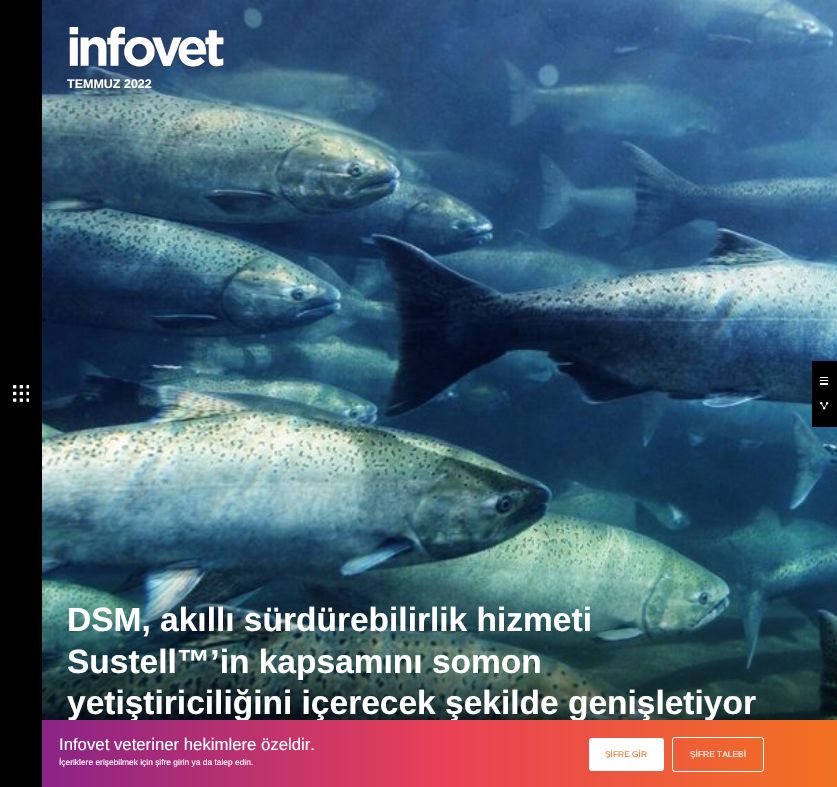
#include "include/core/SkBlurTypes.h"
#include "include/core/SkCanvas.h"
#include "include/core/SkData.h"
#include "include/core/SkFont.h"
#include "include/core/SkFontMgr.h"
#include "include/core/SkImage.h"
#include "include/core/SkMaskFilter.h"
#include "include/core/SkPaint.h"
#include "include/core/SkPathBuilder.h"
#include "include/core/SkTextBlob.h"
#include "include/effects/SkDashPathEffect.h"
#include "include/effects/SkGradientShader.h"
#include "include/utils/SkParsePath.h"

extern sk_sp<SkFontMgr> fontMgr;

static SkFont font(const char* family, int weight, float size, bool italic = false) {
    SkFontStyle style(weight, SkFontStyle::kNormal_Width,
        italic ? SkFontStyle::kItalic_Slant : SkFontStyle::kUpright_Slant);
    SkFont result(fontMgr->matchFamilyStyle(family, style), size);
    result.setSubpixel(true);
    return result;
}

static void drawLabel(SkCanvas* canvas, const char* s, float x, float y, const SkFont& font, SkColor color) {
    SkPaint ink(SkColor4f::FromColor(color));
    ink.setAntiAlias(true);
    canvas->drawString(s, x, y, font, ink);
}

static void fillRect(SkCanvas* canvas, float x, float y, float w, float h, SkColor color) {
    SkPaint ink(SkColor4f::FromColor(color));
    ink.setAntiAlias(true);
    canvas->drawRect(SkRect::MakeXYWH(x, y, w, h), ink);
}

static void fillRRect(SkCanvas* canvas, float x, float y, float w, float h, float radius, SkColor color) {
    SkPaint ink(SkColor4f::FromColor(color));
    ink.setAntiAlias(true);
    canvas->drawRoundRect(SkRect::MakeXYWH(x, y, w, h), radius, radius, ink);
}

static void drawPhoto(SkCanvas* canvas, const char* path, float x, float y, float w, float h) {
    auto image = SkImages::DeferredFromEncodedData(SkData::MakeFromFileName(path));
    canvas->drawImageRect(image, SkRect::MakeXYWH(x, y, w, h), SkSamplingOptions());
}

void draw(SkCanvas* canvas) {
    SkPaint paint;
    paint.setAntiAlias(true);
    canvas->clear(0xFFFFFFFF);
    fillRect(canvas, 0, 0, 42, 787, 0xFF000000);
    drawPhoto(canvas, "assets/img1.png", 13, 385, 16, 17);
    drawPhoto(canvas, "assets/img3.png", 42, 0, 795, 720);
    drawPhoto(canvas, "assets/img2.png", 69, 26, 155, 42);
    SkFont font1 = font("Liberation Sans", 700, 12.5f);
    drawLabel(canvas, "TEMMUZ 2022", 67, 88, font1, 0xFFFFFFFF);
    SkFont font2 = font("Liberation Sans", 700, 33.5f);
    drawLabel(canvas, "DSM, akıllı sürdürebilirlik hizmeti", 67, 631, font2, 0xFFFFFFFF);
    drawLabel(canvas, "Sustell™’in kapsamını somon", 67, 673, font2, 0xFFFFFFFF);
    drawLabel(canvas, "yetiştiriciliğini içerecek şekilde genişletiyor", 67, 714, font2, 0xFFFFFFFF);
    {
        const SkColor colors[] = {0xFF8A2387, 0xFFE94057, 0xFFF27121};
        const float stops[] = {0, 0.5f, 1};
        const SkPoint ends[] = {{42, 754}, {837, 754}};
        paint.setShader(SkGradientShader::MakeLinear(ends, colors, stops, 3, SkTileMode::kClamp));
        paint.setAlpha(255);
    }
    canvas->drawRect(SkRect::MakeXYWH(42, 720, 795, 67), paint);
    SkFont font3 = font("Liberation Sans", 400, 16.75f);
    drawLabel(canvas, "Infovet veteriner hekimlere özeldir.", 59, 750, font3, 0xFFFFFFFF);
    SkFont font4 = font("Liberation Sans", 400, 8.4f);
    drawLabel(canvas, "İçeriklere erişebilmek için şifre girin ya da talep edin.", 59, 765, font4, 0xFFFFFFFF);
    fillRRect(canvas, 589, 738, 75, 33, 3, 0xFFFFFFFF);
    drawLabel(canvas, "ŞİFRE GİR", 605, 757, font4, 0xFFF27121);
    paint.setStroke(true);
    paint.setStrokeWidth(1);
    paint.setShader(nullptr);
    paint.setColor(0xFFFFFFFF);
    canvas->drawRoundRect(SkRect::MakeXYWH(672.5f, 737.5f, 91, 34), 2.5f, 2.5f, paint);
    drawLabel(canvas, "ŞİFRE TALEBİ", 690, 757, font4, 0xFFFFFFFF);
    fillRect(canvas, 812, 361, 25, 66, 0xFF000000);
    fillRect(canvas, 820, 377, 8, 1, 0xFFFFFFFF);
    fillRect(canvas, 820, 380, 8, 1, 0xFFFFFFFF);
    fillRect(canvas, 820, 383, 8, 2, 0xFFFFFFFF);
    drawPhoto(canvas, "assets/img4.png", 820, 402, 9, 8);
}
